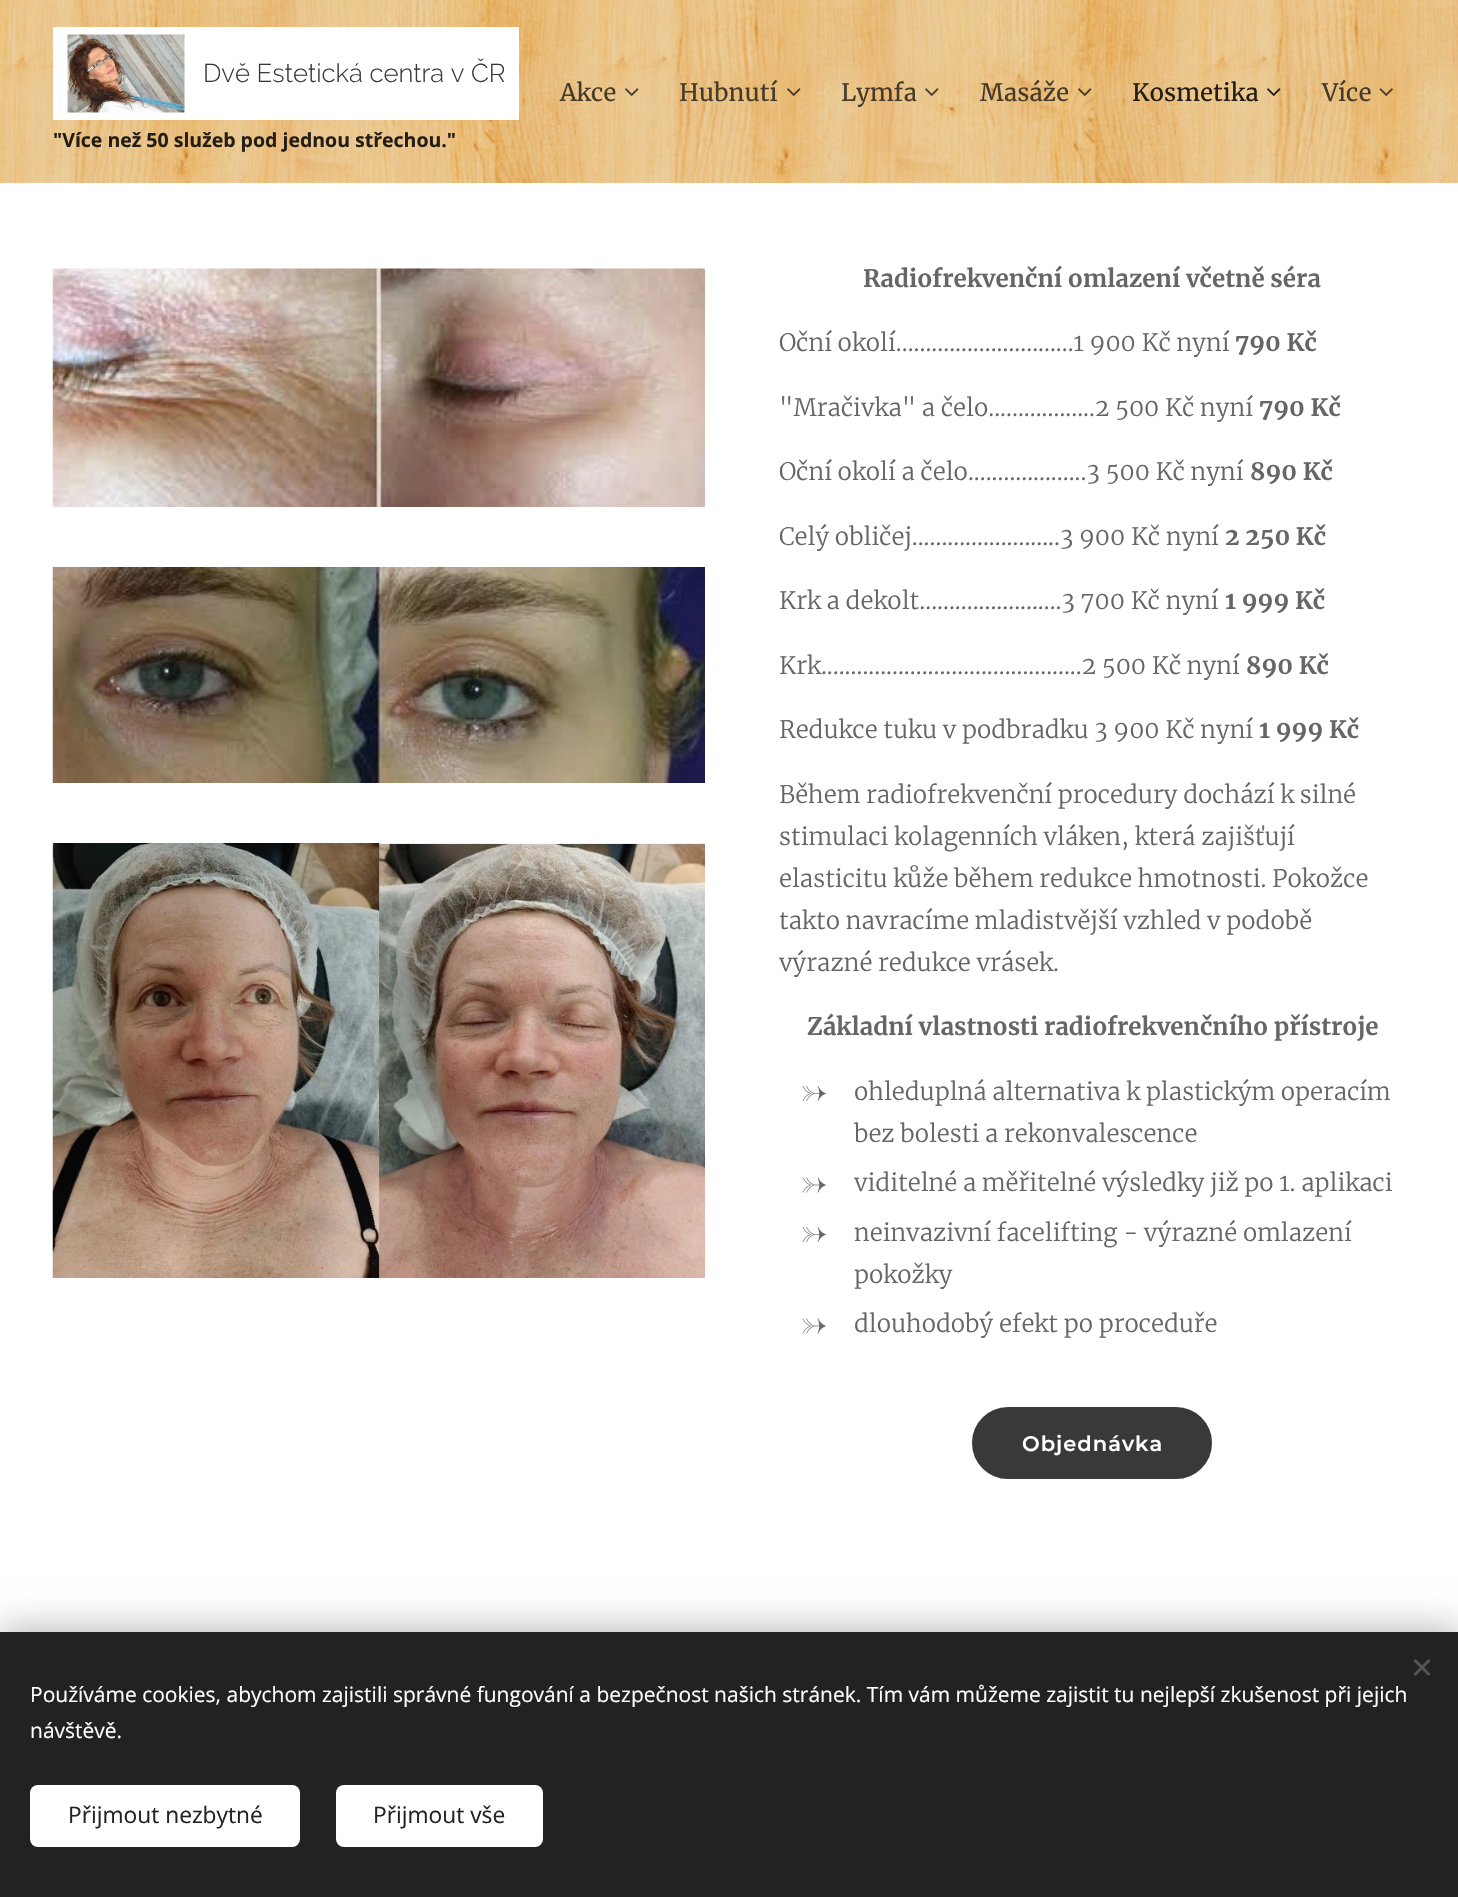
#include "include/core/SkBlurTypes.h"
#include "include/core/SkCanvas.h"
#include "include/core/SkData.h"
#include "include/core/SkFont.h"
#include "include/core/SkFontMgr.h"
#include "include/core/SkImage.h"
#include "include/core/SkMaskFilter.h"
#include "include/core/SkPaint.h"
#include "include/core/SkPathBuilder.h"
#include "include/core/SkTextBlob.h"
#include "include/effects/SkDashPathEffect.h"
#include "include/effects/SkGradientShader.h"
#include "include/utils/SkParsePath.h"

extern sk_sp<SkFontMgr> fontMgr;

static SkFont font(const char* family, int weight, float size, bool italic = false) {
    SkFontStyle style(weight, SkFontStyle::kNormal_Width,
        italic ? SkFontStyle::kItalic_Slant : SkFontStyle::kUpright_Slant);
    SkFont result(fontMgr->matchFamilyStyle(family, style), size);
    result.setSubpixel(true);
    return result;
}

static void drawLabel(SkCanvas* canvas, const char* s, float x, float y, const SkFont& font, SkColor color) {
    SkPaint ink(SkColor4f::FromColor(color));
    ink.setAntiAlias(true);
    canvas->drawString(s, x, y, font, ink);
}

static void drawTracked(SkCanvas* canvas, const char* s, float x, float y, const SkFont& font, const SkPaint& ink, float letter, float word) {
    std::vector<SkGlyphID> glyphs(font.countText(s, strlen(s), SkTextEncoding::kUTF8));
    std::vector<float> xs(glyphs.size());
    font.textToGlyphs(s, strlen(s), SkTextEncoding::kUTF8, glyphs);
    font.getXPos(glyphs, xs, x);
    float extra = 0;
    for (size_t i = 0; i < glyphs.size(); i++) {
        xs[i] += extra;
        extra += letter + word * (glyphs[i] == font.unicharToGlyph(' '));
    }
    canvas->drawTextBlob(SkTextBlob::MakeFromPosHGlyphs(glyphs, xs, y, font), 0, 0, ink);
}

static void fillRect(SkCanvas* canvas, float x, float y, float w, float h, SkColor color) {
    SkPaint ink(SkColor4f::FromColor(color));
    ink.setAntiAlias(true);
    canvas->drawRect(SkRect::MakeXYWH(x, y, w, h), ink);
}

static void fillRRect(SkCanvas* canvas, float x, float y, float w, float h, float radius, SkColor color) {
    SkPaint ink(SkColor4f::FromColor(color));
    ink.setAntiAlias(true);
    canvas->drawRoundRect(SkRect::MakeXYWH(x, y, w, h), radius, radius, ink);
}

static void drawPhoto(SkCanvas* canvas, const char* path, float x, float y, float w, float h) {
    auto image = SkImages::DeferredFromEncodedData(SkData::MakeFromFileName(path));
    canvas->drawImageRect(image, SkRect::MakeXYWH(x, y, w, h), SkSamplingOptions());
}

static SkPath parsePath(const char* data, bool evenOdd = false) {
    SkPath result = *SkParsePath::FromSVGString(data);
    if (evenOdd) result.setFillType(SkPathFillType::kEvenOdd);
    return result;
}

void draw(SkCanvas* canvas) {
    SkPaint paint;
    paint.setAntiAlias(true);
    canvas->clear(0xFFFFFFFF);
    drawPhoto(canvas, "assets/img1.png", 0, 0, 1458, 183);
    fillRect(canvas, 53, 27, 466, 93, 0xFFFFFFFF);
    drawPhoto(canvas, "assets/img2.png", 67, 34, 118, 79);
    SkFont font1 = font("Raleway", 300, 25.75f);
    drawLabel(canvas, "Dvě Estetická centra v ČR", 203, 82, font1, 0xFF393939);
    SkFont font2 = font("Open Sans", 700, 19.5f);
    drawLabel(canvas, "\"Více než 50 služeb pod jednou", 53, 147, font2, 0xFF231D14);
    drawLabel(canvas, "střechou.\"", 355, 147, font2, 0xFF231D14);
    SkFont font3 = font("Merriweather", 400, 24);
    drawLabel(canvas, "Akce", 560, 101, font3, 0xFF463B29);
    drawPhoto(canvas, "assets/img3.png", 625, 88, 14, 8);
    drawLabel(canvas, "Hubnutí", 679, 101, font3, 0xFF463B29);
    drawPhoto(canvas, "assets/img4.png", 787, 88, 14, 8);
    drawLabel(canvas, "Lymfa", 841, 101, font3, 0xFF463B29);
    drawPhoto(canvas, "assets/img5.png", 925, 88, 14, 8);
    drawLabel(canvas, "Masáže", 980, 101, font3, 0xFF463B29);
    drawPhoto(canvas, "assets/img6.png", 1078, 88, 14, 8);
    drawLabel(canvas, "Kosmetika", 1132, 101, font3, 0xFF231D14);
    drawPhoto(canvas, "assets/img7.png", 1267, 88, 14, 8);
    drawLabel(canvas, "Více", 1322, 101, font3, 0xFF463B29);
    drawPhoto(canvas, "assets/img8.png", 1379, 88, 14, 8);
    drawPhoto(canvas, "assets/img9.png", 52, 268, 653, 239);
    drawPhoto(canvas, "assets/img10.png", 52, 567, 653, 216);
    drawPhoto(canvas, "assets/img11.png", 52, 843, 653, 435);
    SkFont font4 = font("Merriweather", 700, 24);
    drawLabel(canvas, "Radiofrekvenční omlazení včetně séra", 863, 287, font4, 0xFF666666);
    SkFont font5 = font("Merriweather", 300, 24);
    drawLabel(canvas, "Oční okolí..............................1 900 Kč nyní", 779, 351, font5, 0xFF666666);
    drawLabel(canvas, "790 Kč", 1235, 351, font4, 0xFF666666);
    drawLabel(canvas, "\"Mračivka\" a čelo..................2 500 Kč nyní", 779, 416, font5, 0xFF666666);
    drawLabel(canvas, "790 Kč", 1259, 416, font4, 0xFF666666);
    drawLabel(canvas, "Oční okolí a čelo....................3 500 Kč nyní", 779, 480, font5, 0xFF666666);
    drawLabel(canvas, "890 Kč", 1250, 480, font4, 0xFF666666);
    drawLabel(canvas, "Celý obličej.........................3 900 Kč nyní", 779, 545, font5, 0xFF666666);
    drawLabel(canvas, "2 250 Kč", 1225, 545, font4, 0xFF666666);
    drawLabel(canvas, "Krk a dekolt........................3 700 Kč nyní", 779, 609, font5, 0xFF666666);
    drawLabel(canvas, "1 999 Kč", 1225, 609, font4, 0xFF666666);
    drawLabel(canvas, "Krk............................................2 500 Kč nyní", 779, 674, font5, 0xFF666666);
    drawLabel(canvas, "890 Kč", 1246, 674, font4, 0xFF666666);
    drawLabel(canvas, "Redukce tuku v podbradku 3 900 Kč nyní", 779, 738, font5, 0xFF666666);
    drawLabel(canvas, "1 999 Kč", 1259, 738, font4, 0xFF666666);
    drawLabel(canvas, "Během radiofrekvenční procedury dochází k silné", 779, 803, font5, 0xFF666666);
    drawLabel(canvas, "stimulaci kolagenních vláken, která zajišťují", 779, 845, font5, 0xFF666666);
    drawLabel(canvas, "elasticitu kůže během redukce hmotnosti. Pokožce", 779, 887, font5, 0xFF666666);
    drawLabel(canvas, "takto navracíme mladistvější vzhled v podobě", 779, 929, font5, 0xFF666666);
    drawLabel(canvas, "výrazné redukce vrásek.", 779, 971, font5, 0xFF666666);
    drawLabel(canvas, "Základní vlastnosti radiofrekvenčního přístroje", 807, 1035, font4, 0xFF666666);
    drawPhoto(canvas, "assets/img12.png", 802, 1086, 25, 15);
    drawLabel(canvas, "ohleduplná alternativa k plastickým operacím", 854, 1100, font5, 0xFF666666);
    drawLabel(canvas, "bez bolesti a rekonvalescence", 854, 1142, font5, 0xFF666666);
    drawPhoto(canvas, "assets/img13.png", 802, 1177, 25, 16);
    drawLabel(canvas, "viditelné a měřitelné výsledky již po 1. aplikaci", 854, 1191, font5, 0xFF666666);
    drawPhoto(canvas, "assets/img12.png", 802, 1227, 25, 15);
    drawLabel(canvas, "neinvazivní facelifting - výrazné omlazení", 854, 1241, font5, 0xFF666666);
    drawLabel(canvas, "pokožky", 854, 1283, font5, 0xFF666666);
    drawPhoto(canvas, "assets/img13.png", 802, 1318, 25, 16);
    drawLabel(canvas, "dlouhodobý efekt po proceduře", 854, 1332, font5, 0xFF666666);
    paint.setColor(0xFF393939);
    canvas->drawRoundRect(SkRect::MakeXYWH(973, 1408, 238, 70), 35, 35, paint);
    paint.setStroke(true);
    paint.setStrokeWidth(2);
    canvas->drawRoundRect(SkRect::MakeXYWH(973, 1408, 238, 70), 35, 35, paint);
    SkFont font6 = font("Montserrat", 600, 21);
    paint.setStroke(false);
    paint.setColor(0xFFFFFFFF);
    drawTracked(canvas, "Objednávka", 1022, 1451, font6, paint, 1, 0);
    paint.setColor(0x54000000);
    paint.setMaskFilter(SkMaskFilter::MakeBlur(kNormal_SkBlurStyle, 19));
    canvas->drawRect(SkRect::MakeXYWH(0, 1632, 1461, 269), paint);
    paint.setMaskFilter(nullptr);
    fillRect(canvas, 0, 1632, 1458, 265, 0xFF222222);
    paint.setColor(0xFF555555);
    canvas->drawPath(parsePath("M1413.5 1674L1428.5 1659L1430.5 1661L1415.5 1676Z"), paint);
    canvas->drawPath(parsePath("M1415.5 1659L1430.5 1674L1428.5 1676L1413.5 1661Z"), paint);
    SkFont font7 = font("Open Sans", 400, 21);
    drawLabel(canvas, "Používáme cookies, abychom zajistili správné fungování a bezpečnost našich stránek. Tím vám můžeme zajistit tu nejlepší zkušenost při jejich", 30, 1702, font7, 0xFFFFFFFF);
    drawLabel(canvas, "návštěvě.", 30, 1738, font7, 0xFFFFFFFF);
    fillRRect(canvas, 30, 1785, 270, 62, 8, 0xFFFFFFFF);
    SkFont font8 = font("Open Sans", 400, 22.75f);
    drawLabel(canvas, "Přijmout nezbytné", 68, 1823, font8, 0xFF222222);
    fillRRect(canvas, 336, 1785, 207, 62, 8, 0xFFFFFFFF);
    drawLabel(canvas, "Přijmout vše", 373, 1823, font8, 0xFF222222);
}
